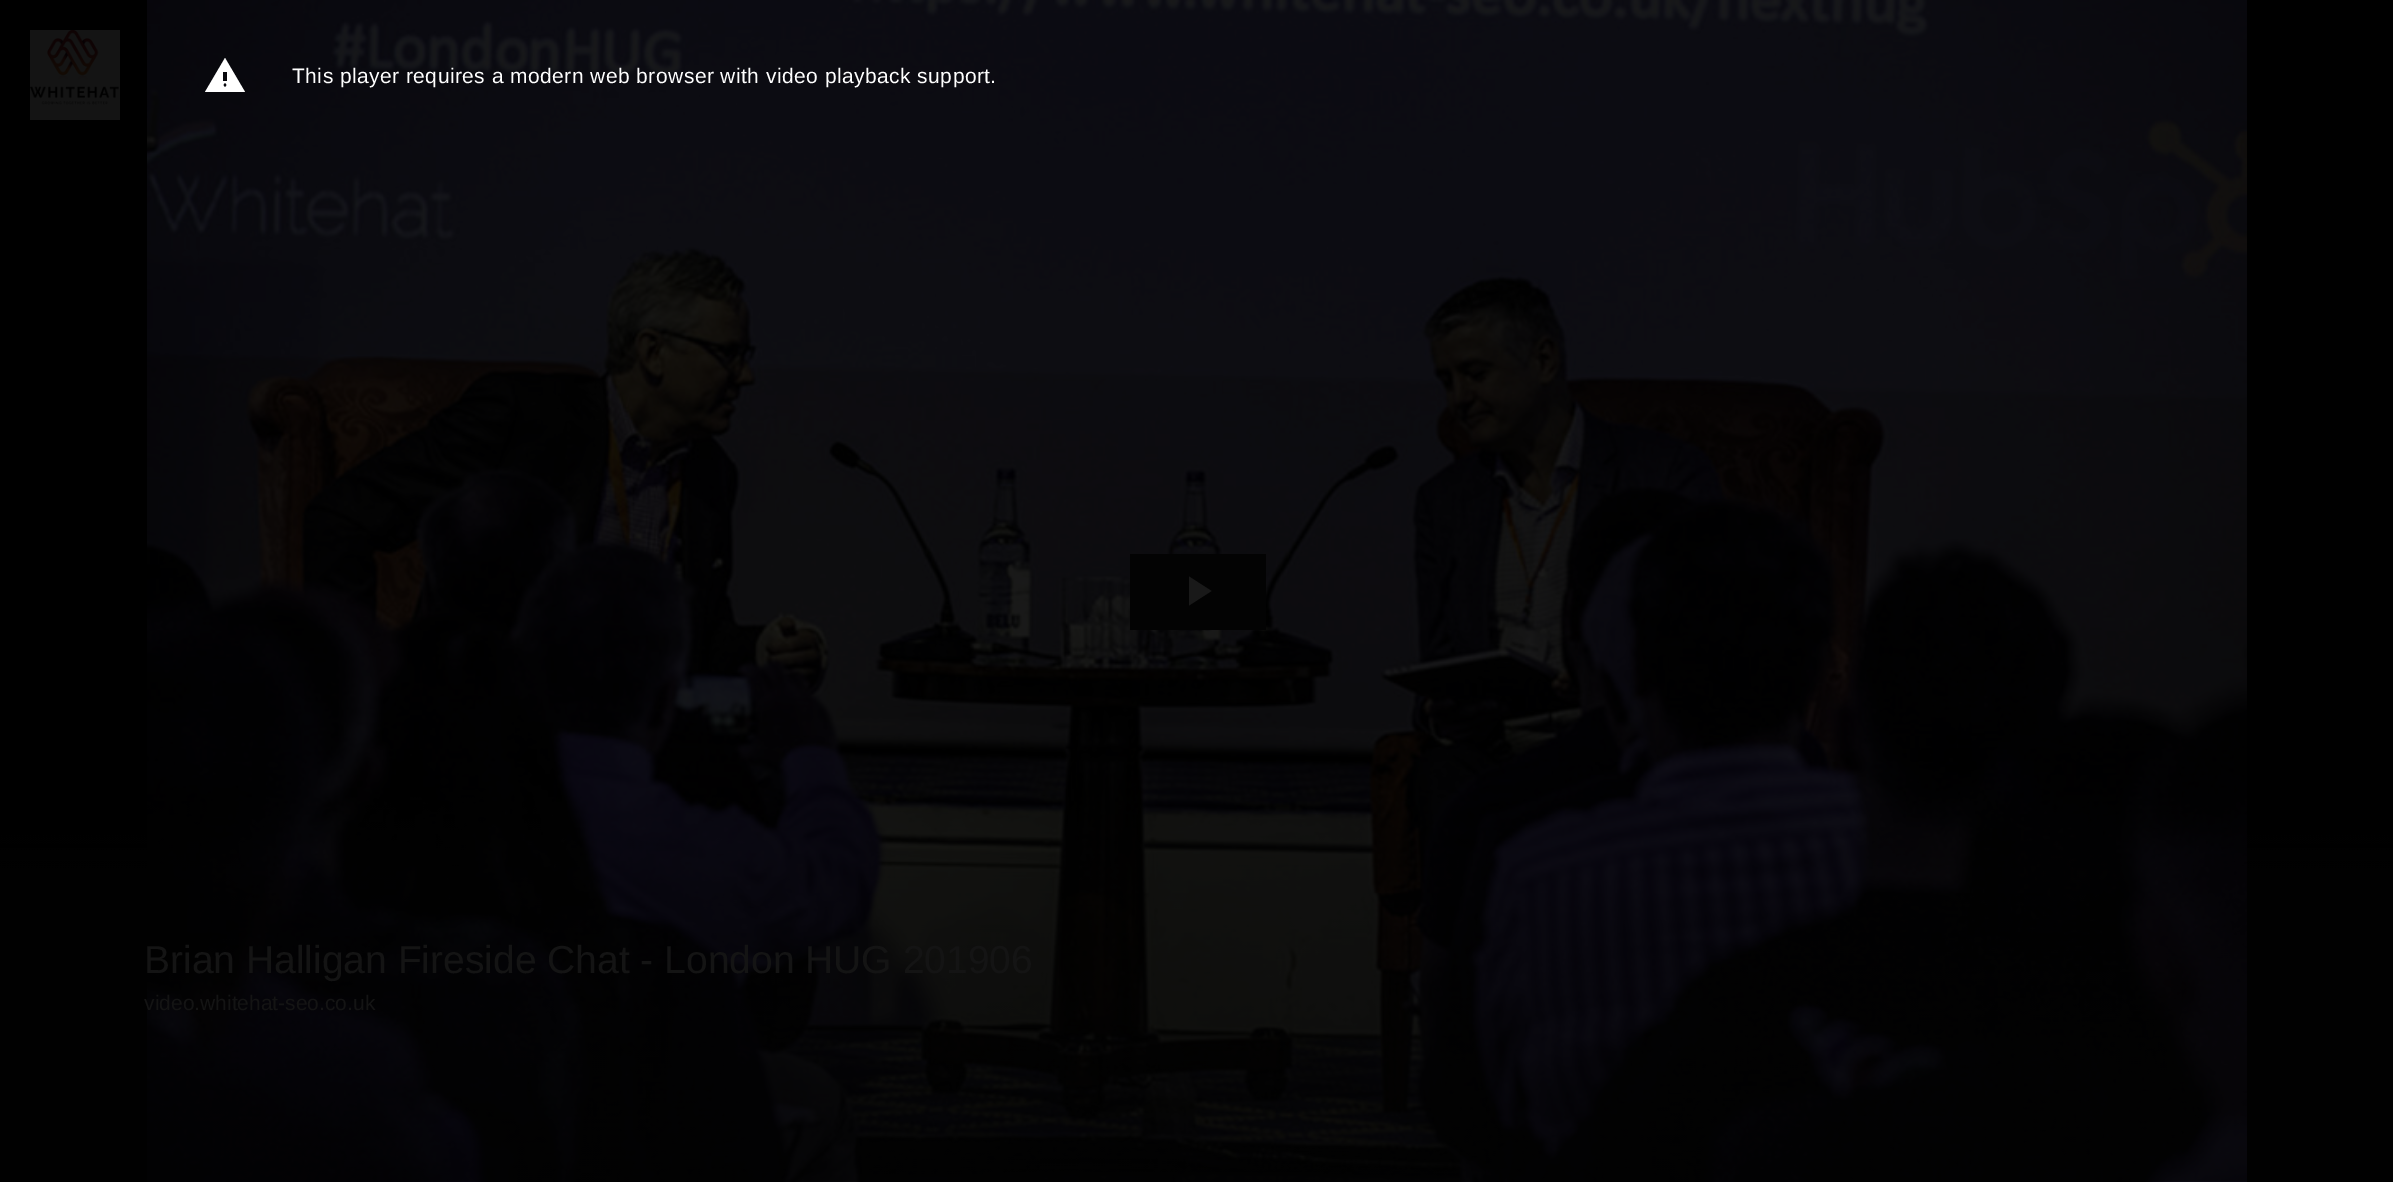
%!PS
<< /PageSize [2393 1182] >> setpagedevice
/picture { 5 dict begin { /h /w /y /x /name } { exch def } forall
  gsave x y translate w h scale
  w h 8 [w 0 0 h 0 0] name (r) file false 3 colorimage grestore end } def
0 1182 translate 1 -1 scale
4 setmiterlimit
0 setgray
0 0 2393 1182 rectfill
(img1.rgb) 30 30 90 90 picture
(img2.rgb) 147 0 2100 1182 picture
1 setgray
newpath 205 92 moveto 225 58 lineto 245 92 lineto closepath 225 87 moveto 227 87 227 83 225 83 curveto 223 83 223 87 225 87 curveto closepath 223 81 moveto 227 81 lineto 227 72 lineto 223 72 lineto closepath fill
/LiberationSans-Regular [21 0 0 -21 0 0] selectfont
292 83 moveto 0.45 0 (This player requires a modern web browser with video playback support.) ashow
0.012 setgray
1130 554 136 76 rectfill
0.098 setgray
newpath 1189 576.5 moveto 1189 605.5 lineto 1211.5 591 lineto closepath fill
(img3.rgb) 0 797 2393 385 picture
/LiberationSans-Regular [39 0 0 -39 0 0] selectfont
0.078 setgray
144 973 moveto (Brian Halligan Fireside Chat - London HUG 201906) show
/LiberationSans-Regular [21 0 0 -21 0 0] selectfont
144 1010 moveto (video.whitehat-seo.co.uk) show
showpage
